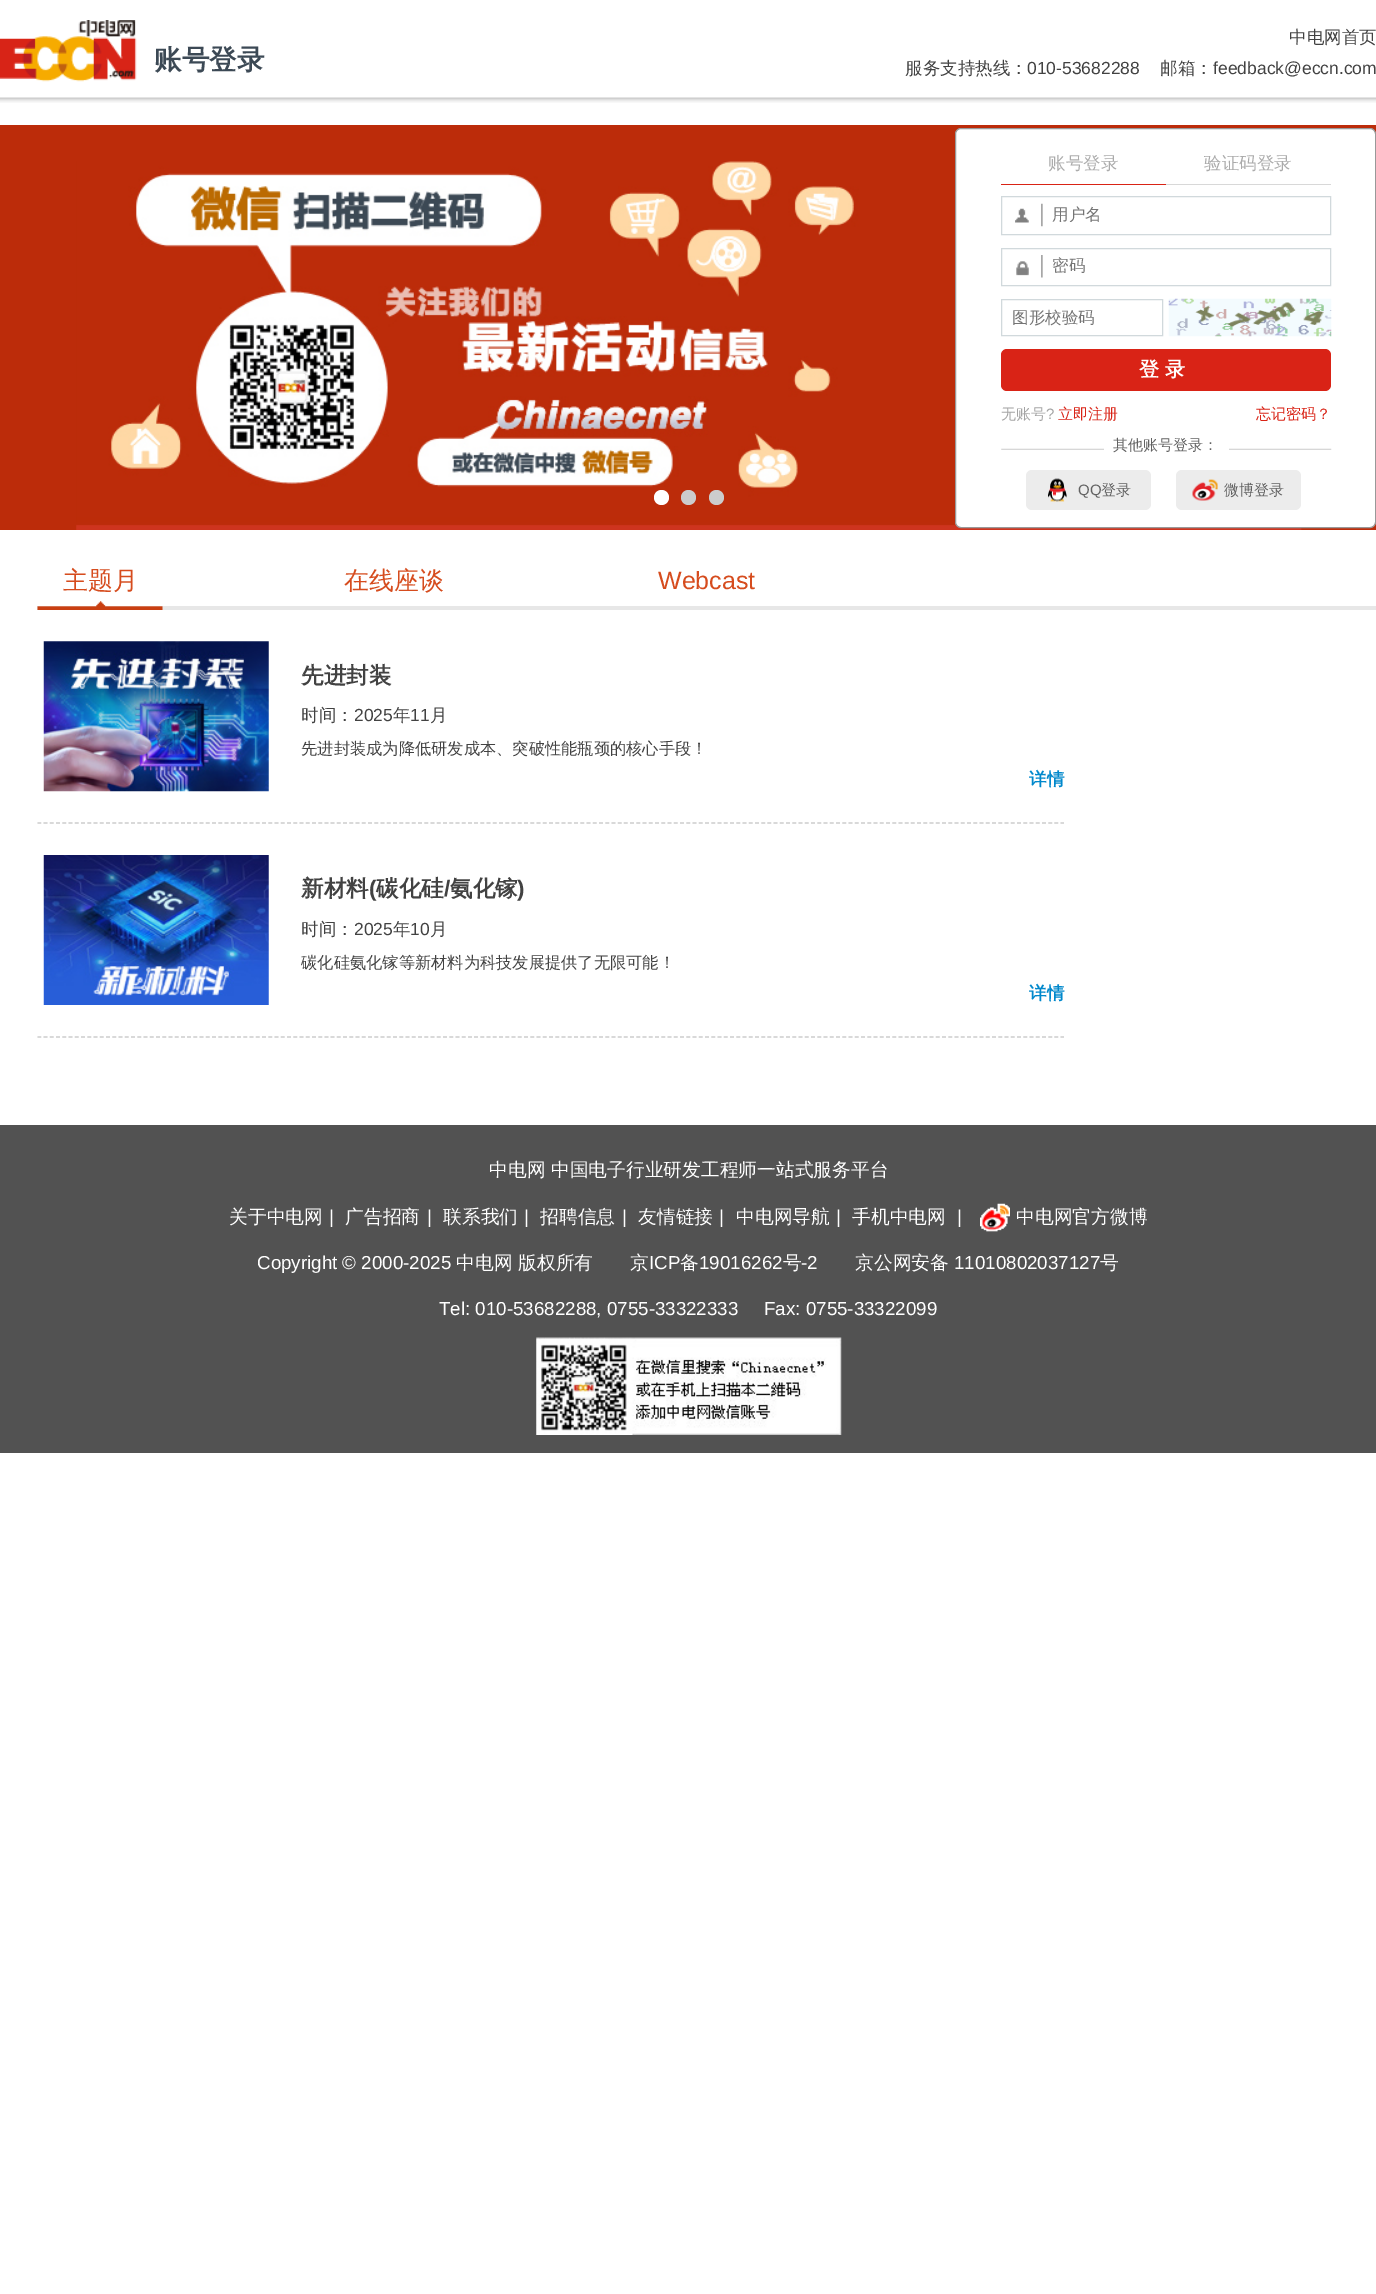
%!PS
<< /PageSize [1376 2294] >> setpagedevice
/roundrect { 5 dict begin { /r /h /w /y /x } { exch def } forall
  x r add y moveto x w add y 2 copy h add r arct x w add y h add x 1 index r arct
  x y h add x y r arct x y 2 copy exch w add exch r arct closepath end } def
/picture { 5 dict begin { /h /w /y /x /name } { exch def } forall
  gsave x y translate w h scale
  w h 8 [w 0 0 h 0 0] name (r) file false 3 colorimage grestore end } def
0 2294 translate 1 -1 scale
4 setmiterlimit
1 setgray
0 0 1376 2294 rectfill
(img1.rgb) 0 97 1376 6 picture
(img2.rgb) 0 20 137 62 picture
/WenQuanYiZenHei-Bold [27.5 0 0 -27.5 0 0] selectfont
0.235 0.286 0.333 setrgbcolor
154 69 moveto (账号登录) show
/WenQuanYiZenHei-Medium [17.5 0 0 -17.5 0 0] selectfont
0.259 setgray
1289 43 moveto (中电网首页) show
905 74 moveto (服务支持热线：) show
/LiberationSans-Regular [17.5 0 0 -17.5 0 0] selectfont
1027 74 moveto (010-53682288) show
/WenQuanYiZenHei-Medium [17.5 0 0 -17.5 0 0] selectfont
1160 74 moveto (邮箱：) show
/LiberationSans-Regular [17.5 0 0 -17.5 0 0] selectfont
1213 74 moveto (feedback@eccn.com) show
0.737 0.173 0.039 setrgbcolor
0 125 1376 405 rectfill
(img3.rgb) 76 161 1226 369 picture
1 setgray
newpath 661.5 497.5 7.5 0 360 arc closepath fill
0.8 setgray
newpath 688.5 497.5 7.5 0 360 arc closepath fill
newpath 716.5 497.5 7.5 0 360 arc closepath fill
1 setgray
955.5 128.5 420 399 5.5 roundrect gsave fill grestore
0.6 setgray
stroke
0.851 0.137 0.082 setrgbcolor
1001 184 165 1 rectfill
/WenQuanYiZenHei-Medium [17.5 0 0 -17.5 0 0] selectfont
0.671 setgray
1048 169 moveto (账号登录) show
0.847 setgray
1166 184 165 1 rectfill
0.671 setgray
1204 169 moveto (验证码登录) show
0.82 0.851 0.863 setrgbcolor
1001.5 196.5 329 38 rectstroke
(img4.rgb) 1015 203 28 24 picture
/WenQuanYiZenHei-Medium [16.5 0 0 -16.5 0 0] selectfont
0.459 setgray
1052 220 moveto (用户名) show
0.82 0.851 0.863 setrgbcolor
1001.5 248.5 329 37 rectstroke
(img5.rgb) 1016 255 27 23 picture
0.459 setgray
1052 271 moveto (密码) show
0.82 0.851 0.863 setrgbcolor
1001.5 299.5 161 36 rectstroke
0.459 setgray
1012 323 moveto (图形校验码) show
(img6.rgb) 1168 298 164 39 picture
0.851 0.137 0.086 setrgbcolor
1001 349 330 42 6 roundrect fill
/WenQuanYiZenHei-Bold [20 0 0 -20 0 0] selectfont
1 setgray
1139 376 moveto 6 0 (登录) ashow
/WenQuanYiZenHei-Medium [15 0 0 -15 0 0] selectfont
0.643 setgray
1001 419 moveto (无账号) show
/LiberationSans-Regular [15 0 0 -15 0 0] selectfont
1046 419 moveto (?) show
/WenQuanYiZenHei-Medium [15 0 0 -15 0 0] selectfont
0.851 0.137 0.086 setrgbcolor
1058 419 moveto (立即注册) show
1256 419 moveto (忘记密码？) show
(img7.rgb) 1001 448 331 2 picture
1 setgray
1104 448 125 2 rectfill
0.384 setgray
1113 450 moveto (其他账号登录：) show
0.925 setgray
1026 470 125 40 6 roundrect fill
(img8.rgb) 1048 478 19 24 picture
/LiberationSans-Regular [15 0 0 -15 0 0] selectfont
0.384 setgray
1078 495 moveto (QQ) show
/WenQuanYiZenHei-Medium [15 0 0 -15 0 0] selectfont
1101 495 moveto (登录) show
0.925 setgray
1176 470 125 40 6 roundrect fill
(img9.rgb) 1192 479 26 22 picture
0.384 setgray
1224 495 moveto (微博登录) show
0.906 setgray
37 606 1339 4 rectfill
(img10.rgb) 37 601 126 9 picture
/WenQuanYiZenHei-Medium [25 0 0 -25 0 0] selectfont
0.839 0.298 0.118 setrgbcolor
63 589 moveto (主题月) show
344 589 moveto (在线座谈) show
/LiberationSans-Regular [25 0 0 -25 0 0] selectfont
658 589 moveto (Webcast) show
0.8 setgray
1.2 setlinewidth
[3.75 2.49] 0 setdash
newpath 37.5 823 moveto 1064 823 lineto stroke
(img11.rgb) 43 641 226 151 picture
/WenQuanYiZenHei-Bold [22.5 0 0 -22.5 0 0] selectfont
0.259 setgray
301 683 moveto (先进封装) show
/WenQuanYiZenHei-Medium [17.5 0 0 -17.5 0 0] selectfont
301 721 moveto (时间：) show
/LiberationSans-Regular [17.5 0 0 -17.5 0 0] selectfont
354 721 moveto (2025) show
/WenQuanYiZenHei-Medium [17.5 0 0 -17.5 0 0] selectfont
393 721 moveto (年) show
/LiberationSans-Regular [17.5 0 0 -17.5 0 0] selectfont
410 721 moveto (11) show
/WenQuanYiZenHei-Medium [17.5 0 0 -17.5 0 0] selectfont
430 721 moveto (月) show
/WenQuanYiZenHei-Medium [16.25 0 0 -16.25 0 0] selectfont
301 754 moveto (先进封装成为降低研发成本、突破性能瓶颈的核心手段！) show
/WenQuanYiZenHei-Bold [17.5 0 0 -17.5 0 0] selectfont
0 0.533 0.8 setrgbcolor
1029 785 moveto (详情) show
0.8 setgray
newpath 37.5 1037 moveto 1064 1037 lineto stroke
(img12.rgb) 43 855 226 150 picture
/WenQuanYiZenHei-Bold [22.5 0 0 -22.5 0 0] selectfont
0.259 setgray
301 896 moveto (新材料) show
/LiberationSans-Bold [22.5 0 0 -22.5 0 0] selectfont
369 896 moveto (\() show
/WenQuanYiZenHei-Bold [22.5 0 0 -22.5 0 0] selectfont
376 896 moveto (碳化硅) show
/LiberationSans-Bold [22.5 0 0 -22.5 0 0] selectfont
444 896 moveto (/) show
/WenQuanYiZenHei-Bold [22.5 0 0 -22.5 0 0] selectfont
450 896 moveto (氨化镓) show
/LiberationSans-Bold [22.5 0 0 -22.5 0 0] selectfont
517 896 moveto (\)) show
/WenQuanYiZenHei-Medium [17.5 0 0 -17.5 0 0] selectfont
301 935 moveto (时间：) show
/LiberationSans-Regular [17.5 0 0 -17.5 0 0] selectfont
354 935 moveto (2025) show
/WenQuanYiZenHei-Medium [17.5 0 0 -17.5 0 0] selectfont
393 935 moveto (年) show
/LiberationSans-Regular [17.5 0 0 -17.5 0 0] selectfont
410 935 moveto (10) show
/WenQuanYiZenHei-Medium [17.5 0 0 -17.5 0 0] selectfont
430 935 moveto (月) show
/WenQuanYiZenHei-Medium [16.25 0 0 -16.25 0 0] selectfont
301 968 moveto (碳化硅氨化镓等新材料为科技发展提供了无限可能！) show
/WenQuanYiZenHei-Bold [17.5 0 0 -17.5 0 0] selectfont
0 0.533 0.8 setrgbcolor
1029 999 moveto (详情) show
0.322 setgray
0 1125 1376 328 rectfill
/WenQuanYiZenHei-Medium [18.75 0 0 -18.75 0 0] selectfont
1 setgray
489 1176 moveto (中电网 中国电子行业研发工程师一站式服务平台) show
229 1223 moveto (关于中电网) show
/LiberationSans-Regular [18.75 0 0 -18.75 0 0] selectfont
329 1223 moveto (|) show
/WenQuanYiZenHei-Medium [18.75 0 0 -18.75 0 0] selectfont
345 1223 moveto (广告招商) show
/LiberationSans-Regular [18.75 0 0 -18.75 0 0] selectfont
427 1223 moveto (|) show
/WenQuanYiZenHei-Medium [18.75 0 0 -18.75 0 0] selectfont
443 1223 moveto (联系我们) show
/LiberationSans-Regular [18.75 0 0 -18.75 0 0] selectfont
524 1223 moveto (|) show
/WenQuanYiZenHei-Medium [18.75 0 0 -18.75 0 0] selectfont
540 1223 moveto (招聘信息) show
/LiberationSans-Regular [18.75 0 0 -18.75 0 0] selectfont
622 1223 moveto (|) show
/WenQuanYiZenHei-Medium [18.75 0 0 -18.75 0 0] selectfont
638 1223 moveto (友情链接) show
/LiberationSans-Regular [18.75 0 0 -18.75 0 0] selectfont
719 1223 moveto (|) show
/WenQuanYiZenHei-Medium [18.75 0 0 -18.75 0 0] selectfont
736 1223 moveto (中电网导航) show
/LiberationSans-Regular [18.75 0 0 -18.75 0 0] selectfont
836 1223 moveto (|) show
/WenQuanYiZenHei-Medium [18.75 0 0 -18.75 0 0] selectfont
852 1223 moveto (手机中电网) show
/LiberationSans-Regular [18.75 0 0 -18.75 0 0] selectfont
957 1223 moveto (|) show
(img13.rgb) 980 1203 30 29 picture
/WenQuanYiZenHei-Medium [18.75 0 0 -18.75 0 0] selectfont
1016 1223 moveto (中电网官方微博) show
/LiberationSans-Regular [18.75 0 0 -18.75 0 0] selectfont
257 1269 moveto (Copyright © 2000-2025) show
/WenQuanYiZenHei-Medium [18.75 0 0 -18.75 0 0] selectfont
456 1269 moveto (中电网) show
518 1269 moveto (版权所有) show
630 1269 moveto (京) show
/LiberationSans-Regular [18.75 0 0 -18.75 0 0] selectfont
649 1269 moveto (ICP) show
/WenQuanYiZenHei-Medium [18.75 0 0 -18.75 0 0] selectfont
680 1269 moveto (备) show
/LiberationSans-Regular [18.75 0 0 -18.75 0 0] selectfont
699 1269 moveto (19016262) show
/WenQuanYiZenHei-Medium [18.75 0 0 -18.75 0 0] selectfont
783 1269 moveto (号) show
/LiberationSans-Regular [18.75 0 0 -18.75 0 0] selectfont
801 1269 moveto (-2) show
/WenQuanYiZenHei-Medium [18.75 0 0 -18.75 0 0] selectfont
855 1269 moveto (京公网安备) show
/LiberationSans-Regular [18.75 0 0 -18.75 0 0] selectfont
954 1269 moveto (11010802037127) show
/WenQuanYiZenHei-Medium [18.75 0 0 -18.75 0 0] selectfont
1100 1269 moveto (号) show
/LiberationSans-Regular [18.75 0 0 -18.75 0 0] selectfont
439 1315 moveto (Tel: 010-53682288, 0755-33322333) show
764 1315 moveto (Fax: 0755-33322099) show
(img14.rgb) 536 1337 306 98 picture
showpage
